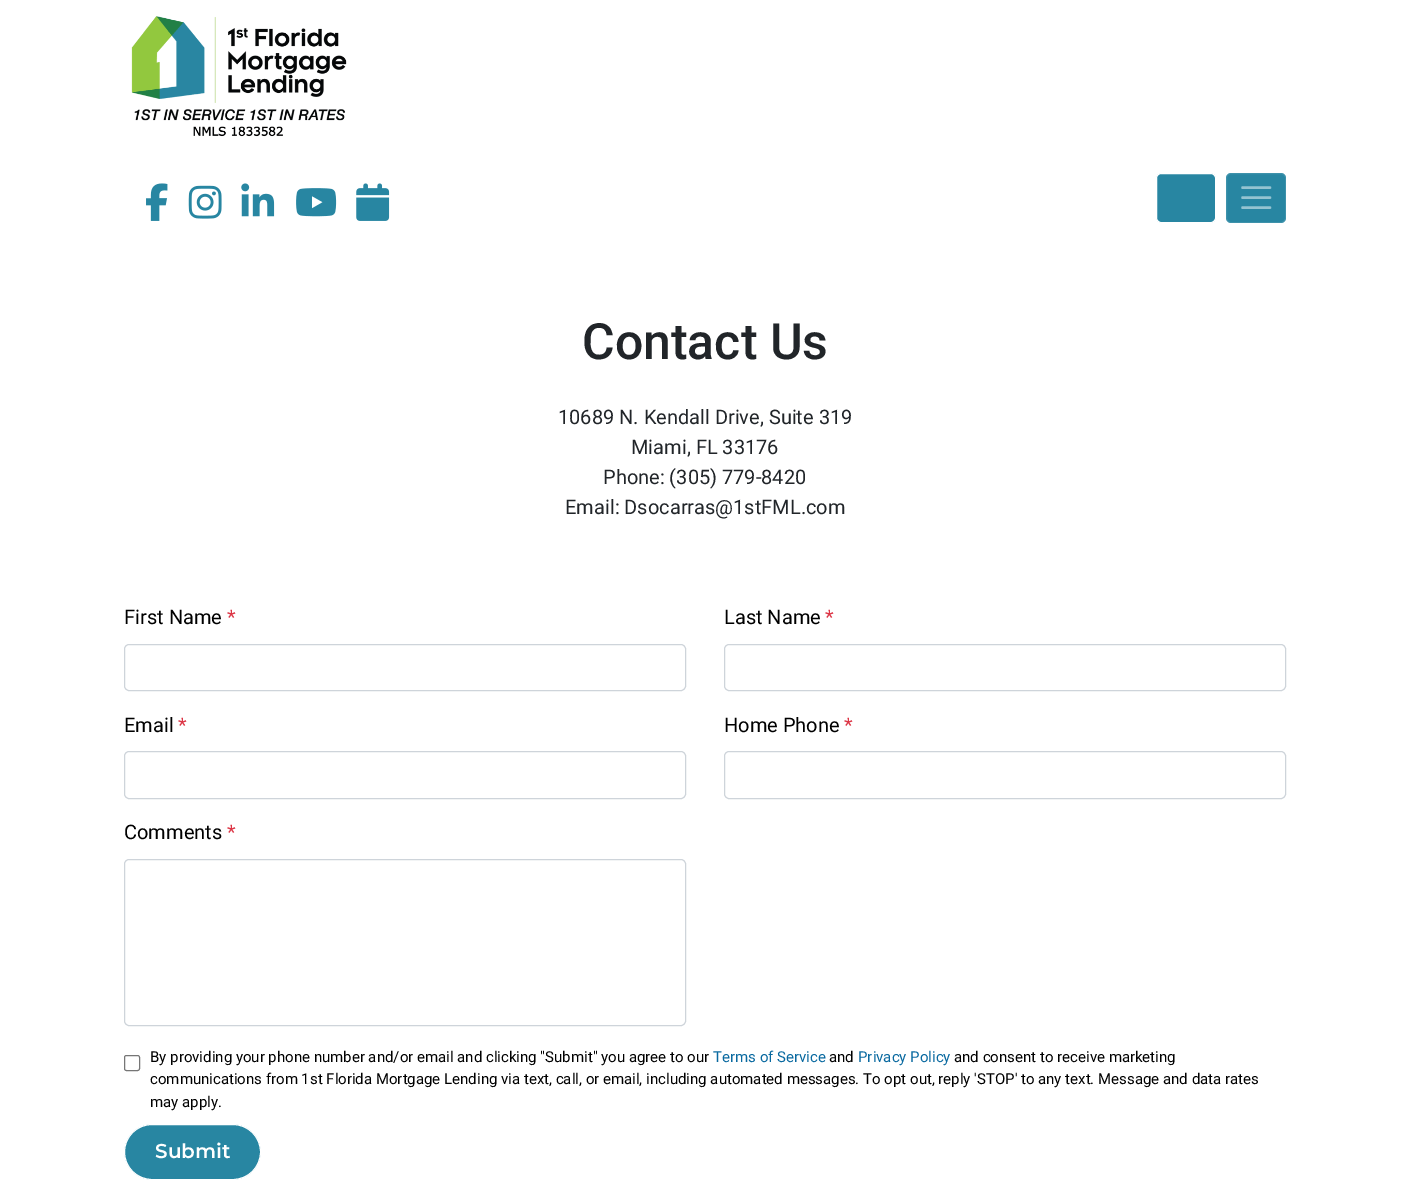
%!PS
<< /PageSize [1409 1196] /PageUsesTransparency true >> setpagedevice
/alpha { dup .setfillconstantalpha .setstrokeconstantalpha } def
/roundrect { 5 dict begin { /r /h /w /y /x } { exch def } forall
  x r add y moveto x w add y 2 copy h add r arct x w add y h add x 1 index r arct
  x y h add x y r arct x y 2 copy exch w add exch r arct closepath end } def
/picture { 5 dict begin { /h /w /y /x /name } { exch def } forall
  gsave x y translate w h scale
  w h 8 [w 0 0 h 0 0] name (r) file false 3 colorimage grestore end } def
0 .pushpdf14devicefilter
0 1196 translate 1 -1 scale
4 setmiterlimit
1 setgray
0 0 1409 1196 rectfill
(img1.rgb) 131 16 216 121 picture
(img2.rgb) 146 183 22 38 picture
(img3.rgb) 188 185 34 34 picture
(img4.rgb) 241 183 34 34 picture
(img5.rgb) 296 188 41 29 picture
(img6.rgb) 356 183 34 38 picture
0.157 0.525 0.635 setrgbcolor
1156.5 173.5 59 49 4.5 roundrect gsave fill grestore
1 setgray
stroke
0.157 0.525 0.635 setrgbcolor
1226 173 60 50 5 roundrect fill
0.1 alpha
1 setgray
1226.5 173.5 59 49 4.5 roundrect stroke
1 alpha
0.58 0.765 0.82 setrgbcolor
2.5 setlinewidth
1 setlinecap
newpath 1242.5 187.5 moveto 1270 187.5 lineto 1242.5 197.5 moveto 1270 197.5 lineto 1242.5 207.5 moveto 1270 207.5 lineto stroke
/Roboto-Medium [50 0 0 -50 0 0] selectfont
0.129 0.145 0.161 setrgbcolor
582 359 moveto (Contact Us) show
/Roboto-Regular [20 0 0 -20 0 0] selectfont
558 424 moveto (10689 N. Kendall Drive, Suite 319) show
631 454 moveto (Miami, FL 33176) show
603 484 moveto (Phone: \(305\) 779-8420) show
565 514 moveto (Email: Dsocarras@1stFML.com) show
0 setgray
124 624 moveto (First Name) show
0.863 0.208 0.271 setrgbcolor
227 624 moveto (*) show
0.808 0.831 0.855 setrgbcolor
1 setlinewidth
0 setlinecap
124.5 644.5 561 46 4.5 roundrect stroke
0 setgray
724 624 moveto (Last Name) show
0.863 0.208 0.271 setrgbcolor
825 624 moveto (*) show
0.808 0.831 0.855 setrgbcolor
724.5 644.5 561 46 4.5 roundrect stroke
0 setgray
124 732 moveto (Email) show
0.863 0.208 0.271 setrgbcolor
178 732 moveto (*) show
0.808 0.831 0.855 setrgbcolor
124.5 751.5 561 47 4.5 roundrect stroke
0 setgray
724 732 moveto (Home Phone) show
0.863 0.208 0.271 setrgbcolor
844 732 moveto (*) show
0.808 0.831 0.855 setrgbcolor
724.5 751.5 561 47 4.5 roundrect stroke
0 setgray
124 839 moveto (Comments) show
0.863 0.208 0.271 setrgbcolor
227 839 moveto (*) show
0.808 0.831 0.855 setrgbcolor
124.5 859.5 561 166 4.5 roundrect stroke
0.463 setgray
124.5 1055.5 15 15 2 roundrect stroke
/Roboto-Regular [15 0 0 -15 0 0] selectfont
0 setgray
150 1062 moveto (By providing your phone number and/or email and clicking "Submit" you agree to our) show
0.035 0.412 0.627 setrgbcolor
713 1062 moveto (Terms of Service) show
0 setgray
829 1062 moveto (and) show
0.035 0.412 0.627 setrgbcolor
858 1062 moveto (Privacy Policy) show
0 setgray
954 1062 moveto (and consent to receive marketing) show
150 1084 moveto (communications from 1st Florida Mortgage Lending via text, call, or email, including automated messages. To opt out, reply 'STOP' to any text. Message and data rates) show
150 1107 moveto (may apply.) show
0.157 0.525 0.635 setrgbcolor
124.5 1124.5 136 55 27.5 roundrect gsave fill grestore
1 setgray
stroke
/Montserrat-SemiBold [20 0 0 -20 0 0] selectfont
155 1158 moveto (Submit) show
.poppdf14devicefilter showpage
